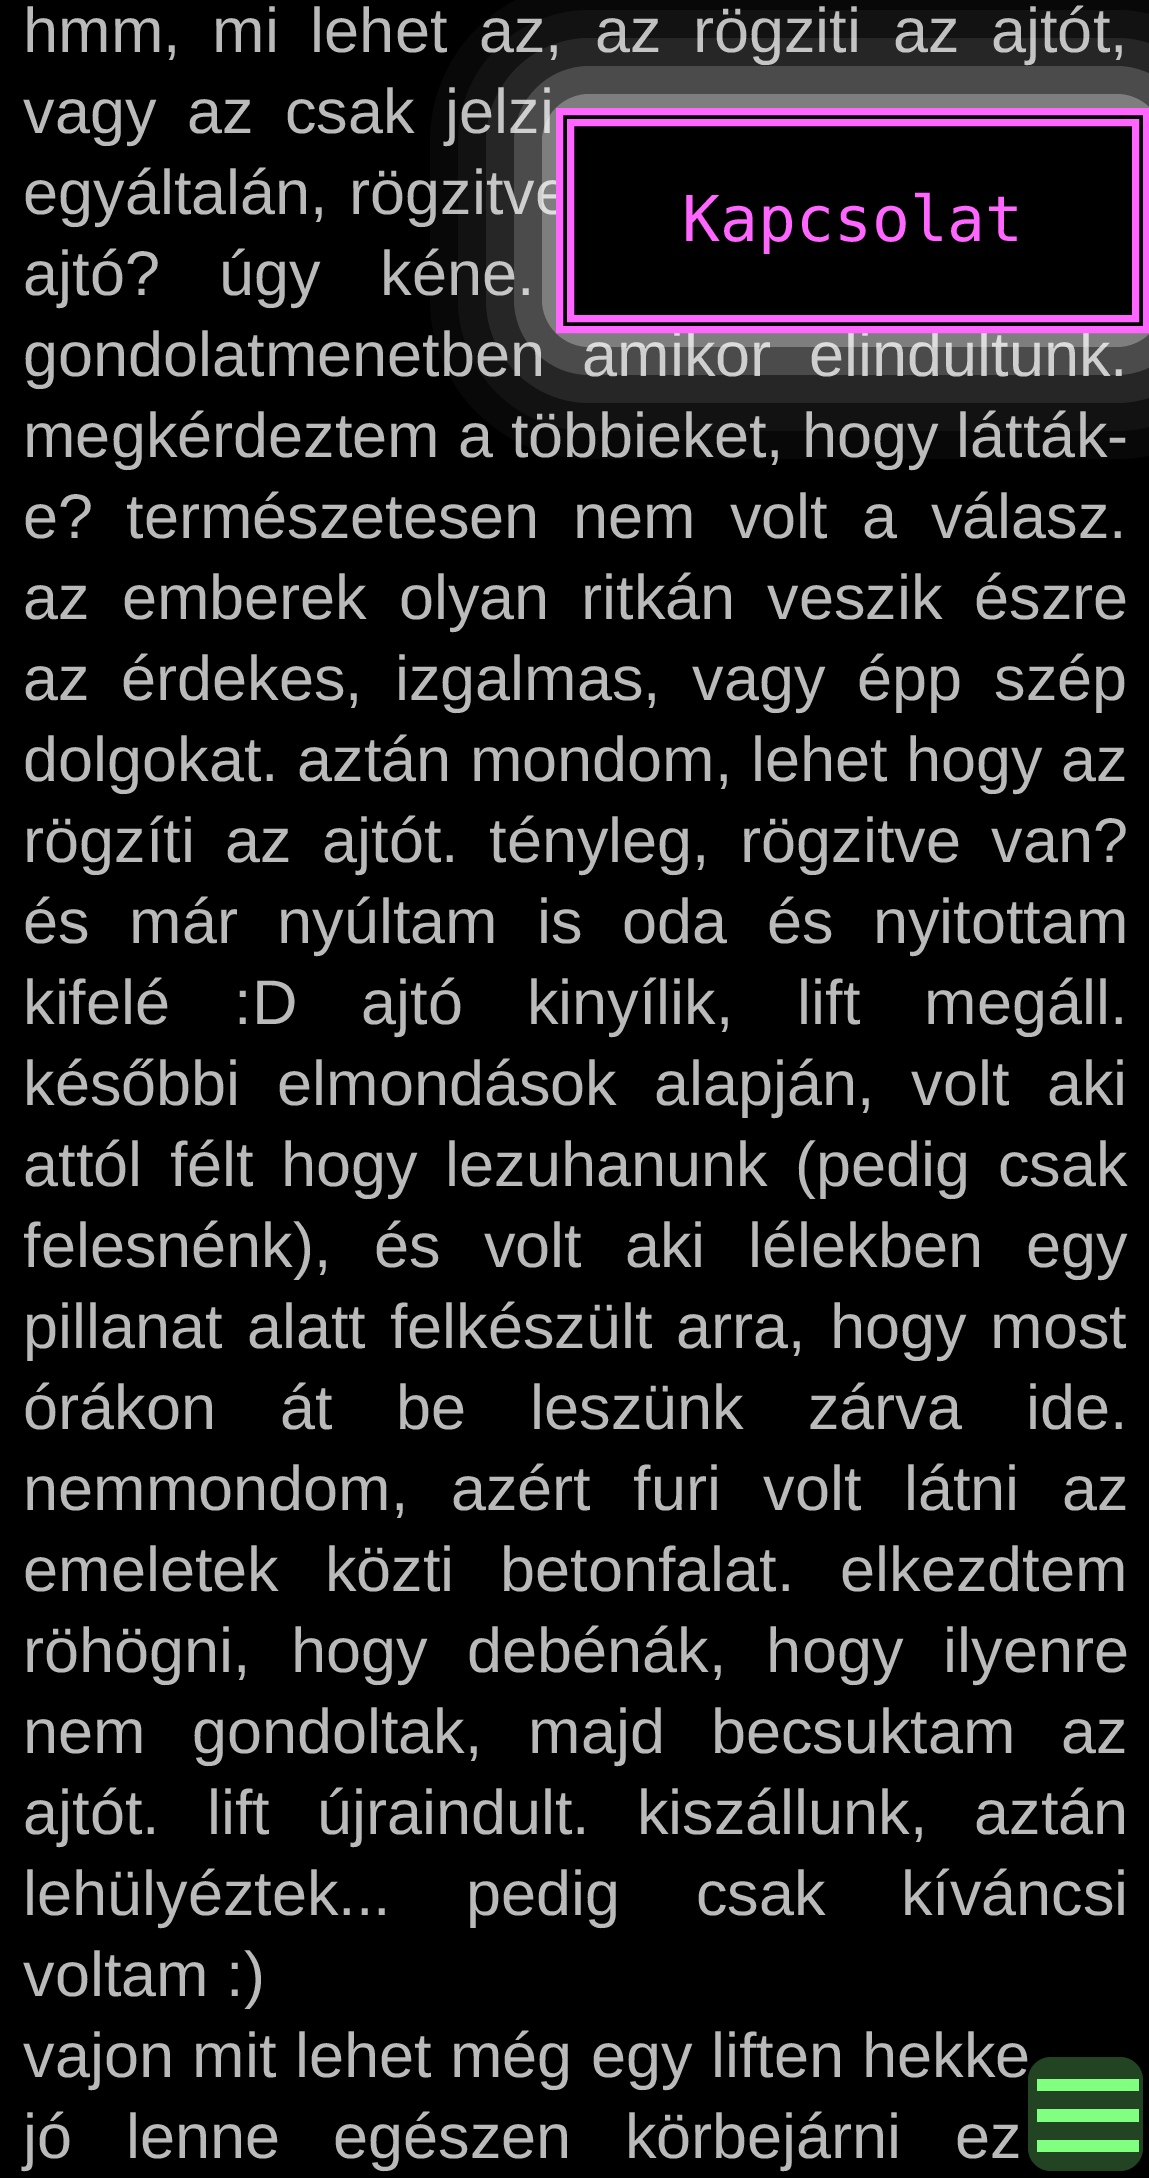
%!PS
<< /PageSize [1149 2178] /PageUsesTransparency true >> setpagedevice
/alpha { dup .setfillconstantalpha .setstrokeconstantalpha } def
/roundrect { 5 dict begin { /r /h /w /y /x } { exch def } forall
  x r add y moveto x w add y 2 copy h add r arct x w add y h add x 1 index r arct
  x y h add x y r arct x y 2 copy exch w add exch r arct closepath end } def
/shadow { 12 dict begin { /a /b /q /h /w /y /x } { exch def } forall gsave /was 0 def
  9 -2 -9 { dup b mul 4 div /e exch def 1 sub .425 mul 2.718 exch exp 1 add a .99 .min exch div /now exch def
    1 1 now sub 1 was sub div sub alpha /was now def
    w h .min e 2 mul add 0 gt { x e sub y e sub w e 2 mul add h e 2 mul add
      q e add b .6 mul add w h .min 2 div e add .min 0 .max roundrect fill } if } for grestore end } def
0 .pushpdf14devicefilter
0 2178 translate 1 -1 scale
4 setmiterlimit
0 setgray
0 0 1149 2178 rectfill
/LiberationSans-Regular [63 0 0 -63 0 0] selectfont
0.729 setgray
23 52 moveto 14.25 0 32 (hmm, mi lehet az, az rögziti az ajtót,) widthshow
23 133 moveto 13.5 0 32 (vagy az csak jelzi) widthshow
23 214 moveto 4 0 32 (egyáltalán, rögzitve) widthshow
23 295 moveto 42 0 32 (ajtó? úgy kéne.) widthshow
23 376 moveto 20 0 32 (gondolatmenetben amikor elindultunk.) widthshow
23 457 moveto 0.5 0 32 (megkérdeztem a többieket, hogy látták-) widthshow
23 538 moveto (e?) show
126 538 moveto 16.5 0 32 (természetesen nem volt a válasz.) widthshow
23 619 moveto 14.5 0 32 (az emberek olyan ritkán veszik észre) widthshow
23 700 moveto 14.25 0 32 (az érdekes, izgalmas, vagy épp szép) widthshow
23 781 moveto 1 0 32 (dolgokat. aztán mondom, lehet hogy az) widthshow
23 862 moveto 13 0 32 (rögzíti az ajtót. tényleg, rögzitve van?) widthshow
23 943 moveto 22 0 32 (és már nyúltam is oda és nyitottam) widthshow
23 1024 moveto 46.5 0 32 (kifelé :D ajtó kinyílik, lift megáll.) widthshow
23 1105 moveto 19.5 0 32 (későbbi elmondások alapján, volt aki) widthshow
23 1186 moveto 10 0 32 (attól félt hogy lezuhanunk \(pedig csak) widthshow
23 1267 moveto 25.5 0 32 (felesnénk\), és volt aki lélekben egy) widthshow
23 1348 moveto 6.5 0 32 (pillanat alatt felkészült arra, hogy most) widthshow
23 1429 moveto 46.5 0 32 (órákon át be leszünk zárva ide.) widthshow
23 1510 moveto 25 0 32 (nemmondom, azért furi volt látni az) widthshow
23 1591 moveto 28.5 0 32 (emeletek közti betonfalat. elkezdtem) widthshow
23 1672 moveto 22.5 0 32 (röhögni, hogy debénák, hogy ilyenre) widthshow
23 1753 moveto 28.5 0 32 (nem gondoltak, majd becsuktam az) widthshow
23 1834 moveto 29.5 0 32 (ajtót. lift újraindult. kiszállunk, aztán) widthshow
23 1915 moveto 58 0 32 (lehülyéztek... pedig csak kíváncsi) widthshow
23 1996 moveto (voltam :\)) show
23 2077 moveto 1 0 32 (vajon mit lehet még egy liften hekke) widthshow
23 2158 moveto 36 0 32 (jó lenne egészen körbejárni ez) widthshow
0.133 0.267 0.133 setrgbcolor
1028 2057 115 114 23 roundrect fill
0.502 1 0.502 setrgbcolor
1037 2079 102 12 rectfill
1037 2109 102 13 rectfill
1037 2140 102 12 rectfill
1 setgray
556 108 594 225 0 56 1 shadow
0 setgray
newpath 559.5 111.5 moveto 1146.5 111.5 lineto 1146.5 329.5 lineto 559.5 329.5 lineto closepath gsave fill grestore
1 0.4 1 setrgbcolor
7 setlinewidth
stroke
570.5 122.5 565 196 rectstroke
/DejaVuSansMono-Regular [63 0 0 -63 0 0] selectfont
682 241 moveto (Kapcsolat) show
.poppdf14devicefilter showpage
